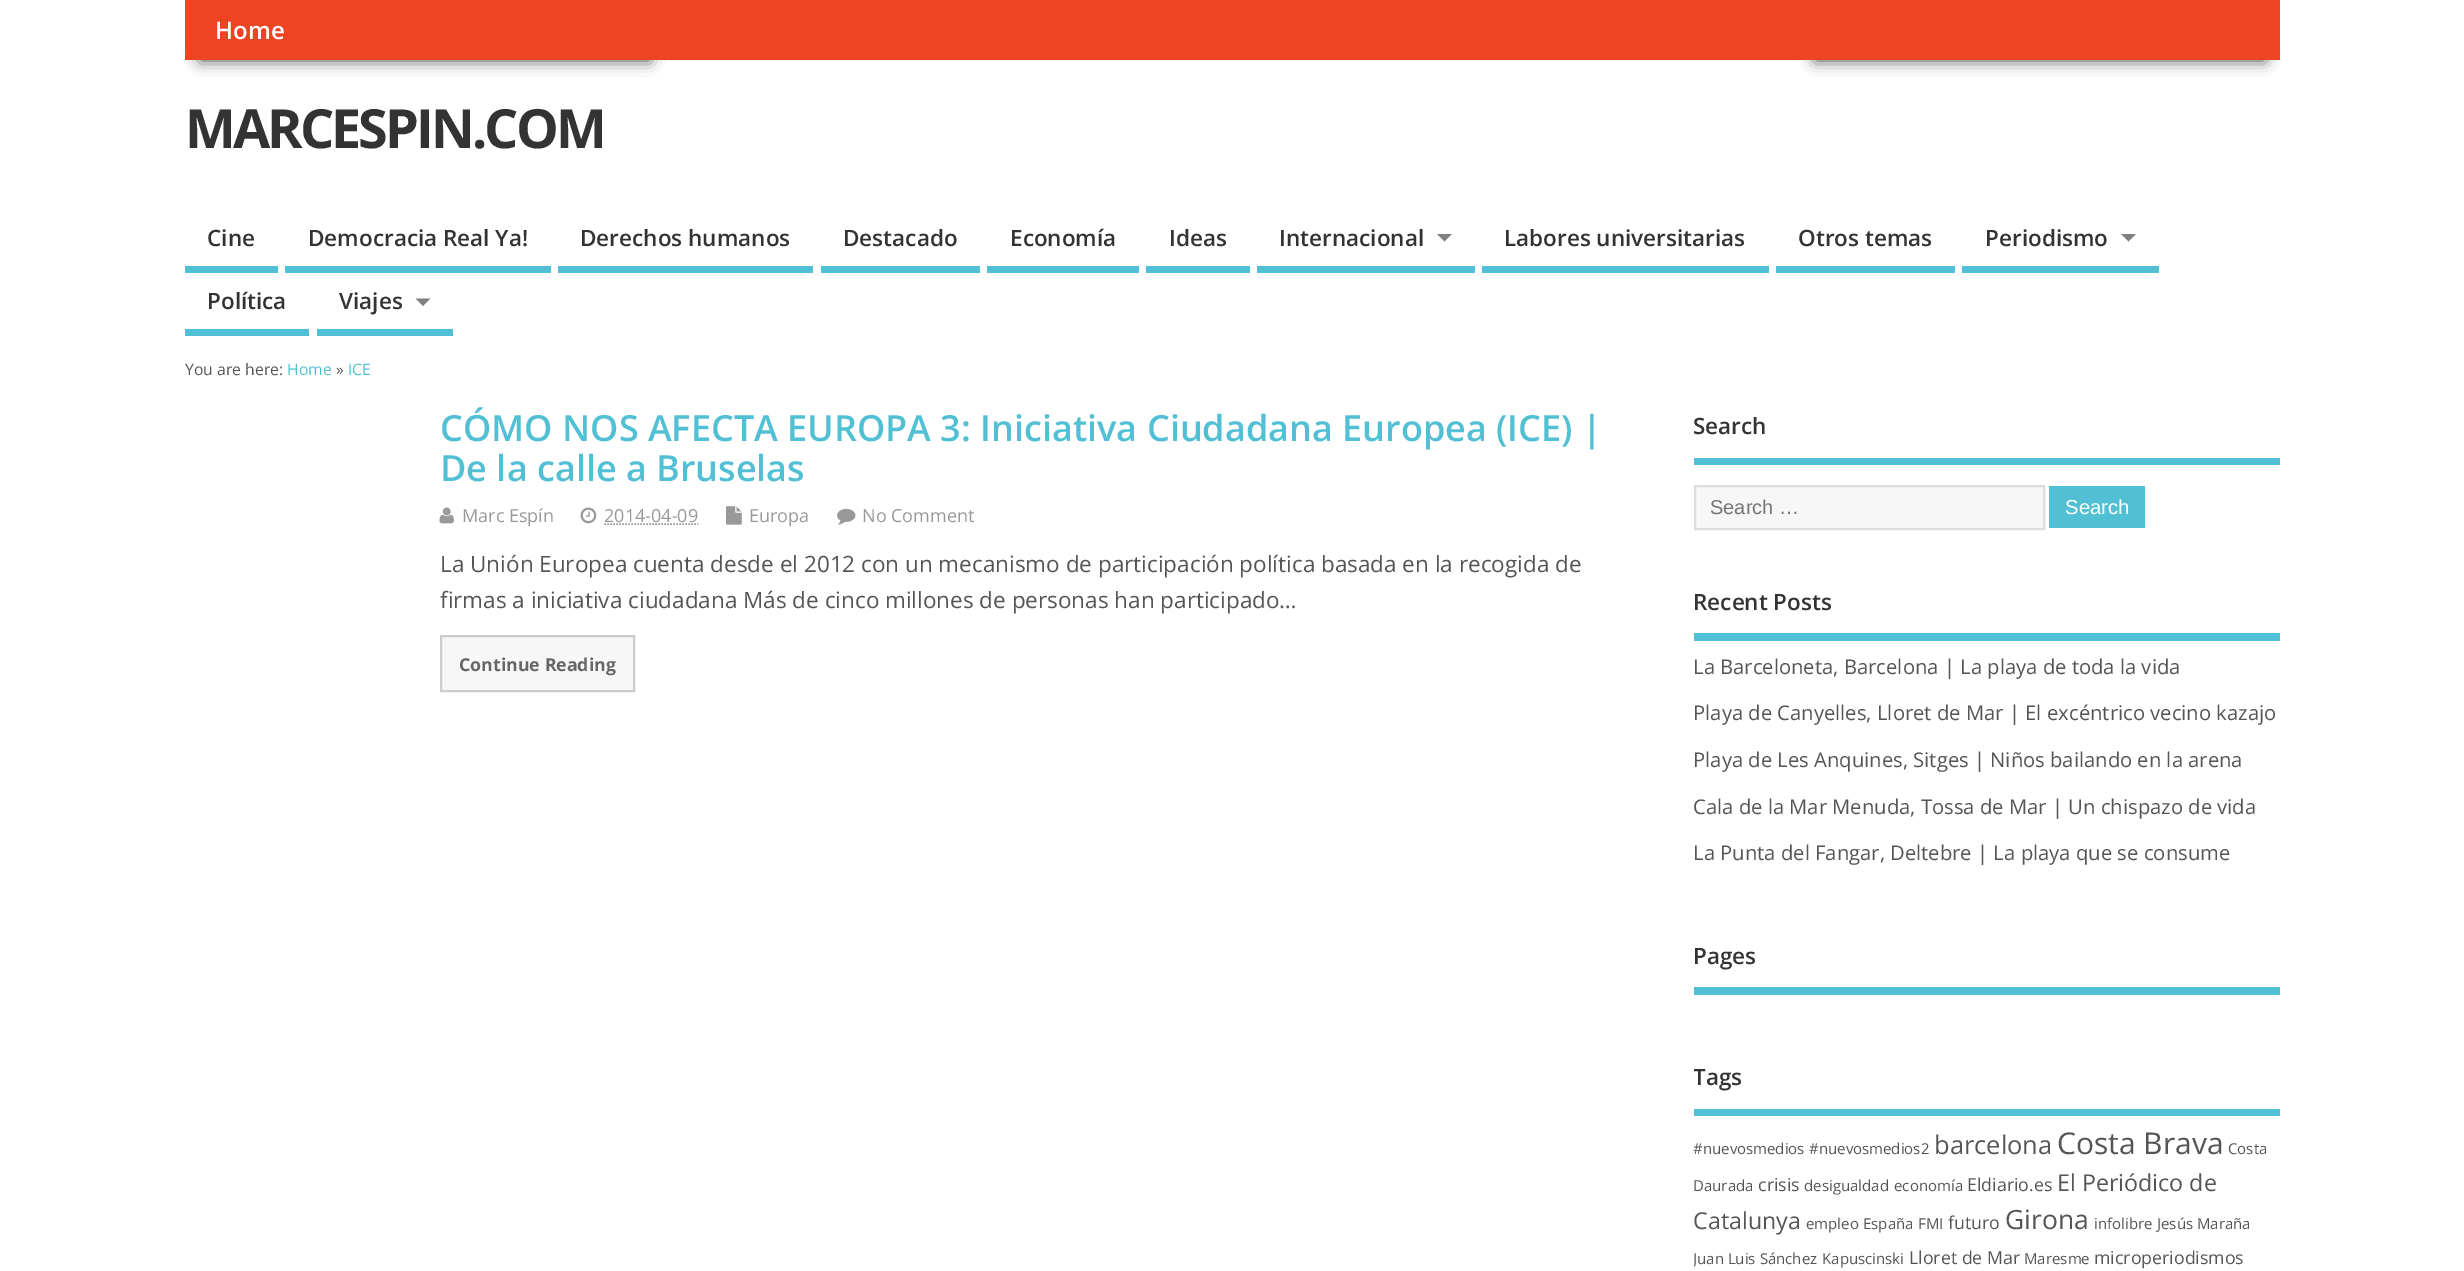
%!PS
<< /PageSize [2464 1271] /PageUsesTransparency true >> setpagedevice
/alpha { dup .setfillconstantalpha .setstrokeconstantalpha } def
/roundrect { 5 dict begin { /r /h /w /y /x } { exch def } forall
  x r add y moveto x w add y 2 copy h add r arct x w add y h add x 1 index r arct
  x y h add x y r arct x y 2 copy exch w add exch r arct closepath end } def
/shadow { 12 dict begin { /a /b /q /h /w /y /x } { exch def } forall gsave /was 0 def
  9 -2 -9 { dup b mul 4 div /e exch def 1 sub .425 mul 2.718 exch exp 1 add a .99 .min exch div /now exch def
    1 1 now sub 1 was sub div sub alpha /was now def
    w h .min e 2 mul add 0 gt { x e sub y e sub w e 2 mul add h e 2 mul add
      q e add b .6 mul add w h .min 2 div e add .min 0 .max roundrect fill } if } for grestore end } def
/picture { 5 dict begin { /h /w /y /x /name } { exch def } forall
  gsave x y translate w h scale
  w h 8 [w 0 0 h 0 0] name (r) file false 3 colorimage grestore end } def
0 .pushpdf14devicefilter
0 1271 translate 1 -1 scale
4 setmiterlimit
1 setgray
0 0 2464 1271 rectfill
0 setgray
200 48 450 12 0 7.5 0.75 shadow
1815 48 450 12 0 7.5 0.75 shadow
0.937 0.267 0.137 setrgbcolor
185 0 2095 60 rectfill
/OpenSans-SemiBold [24 0 0 -24 0 0] selectfont
1 setgray
215 39 moveto (Home) show
/OpenSans-Bold [54 0 0 -54 0 0] selectfont
0.2 setgray
185 148 moveto -3 0 (MARCESPIN.COM) ashow
0.322 0.753 0.831 setrgbcolor
185 266 93 7 rectfill
/OpenSans-SemiBold [22.5 0 0 -22.5 0 0] selectfont
0.2 setgray
207 246 moveto (Cine) show
0.322 0.753 0.831 setrgbcolor
285 266 266 7 rectfill
0.2 setgray
308 246 moveto (Democracia Real Ya!) show
0.322 0.753 0.831 setrgbcolor
558 266 255 7 rectfill
0.2 setgray
580 246 moveto (Derechos humanos) show
0.322 0.753 0.831 setrgbcolor
821 266 159 7 rectfill
0.2 setgray
843 246 moveto (Destacado) show
0.322 0.753 0.831 setrgbcolor
987 266 152 7 rectfill
0.2 setgray
1010 246 moveto (Economía) show
0.322 0.753 0.831 setrgbcolor
1146 266 104 7 rectfill
0.2 setgray
1169 246 moveto (Ideas) show
0.322 0.753 0.831 setrgbcolor
1257 266 218 7 rectfill
0.2 setgray
1279 246 moveto (Internacional) show
0.502 setgray
newpath 1437 234 moveto 1452 234 lineto 1444.5 241.5 lineto closepath fill
0.322 0.753 0.831 setrgbcolor
1482 266 287 7 rectfill
0.2 setgray
1504 246 moveto (Labores universitarias) show
0.322 0.753 0.831 setrgbcolor
1776 266 179 7 rectfill
0.2 setgray
1798 246 moveto (Otros temas) show
0.322 0.753 0.831 setrgbcolor
1962 266 197 7 rectfill
0.2 setgray
1985 246 moveto (Periodismo) show
0.502 setgray
newpath 2121 234 moveto 2136 234 lineto 2128.5 241.5 lineto closepath fill
0.322 0.753 0.831 setrgbcolor
185 329 124 7 rectfill
0.2 setgray
207 309 moveto (Política) show
0.322 0.753 0.831 setrgbcolor
317 329 136 7 rectfill
0.2 setgray
339 309 moveto (Viajes) show
0.502 setgray
newpath 415.5 298.5 moveto 430.5 298.5 lineto 423 306 lineto closepath fill
/OpenSans-Regular [15.75 0 0 -15.75 0 0] selectfont
0.333 setgray
185 375 moveto (You are here:) show
0.322 0.753 0.831 setrgbcolor
287 375 moveto (Home) show
0.333 setgray
336 375 moveto (») show
0.322 0.753 0.831 setrgbcolor
348 375 moveto (ICE) show
/OpenSans-SemiBold [36 0 0 -36 0 0] selectfont
440 441 moveto (CÓMO NOS AFECTA EUROPA 3: Iniciativa Ciudadana Europea \(ICE\) |) show
440 481 moveto (De la calle a Bruselas) show
(img1.rgb) 439 507 15 17 picture
/OpenSans-Regular [18 0 0 -18 0 0] selectfont
0.6 setgray
462 522 moveto (Marc Espín) show
(img2.rgb) 580 507 17 17 picture
604 522 moveto (2014-04-09) show
1.5 setlinewidth
[1.5 1.5] 0 setdash
newpath 604.5 524 moveto 698.5 524 lineto stroke
(img3.rgb) 726 506 16 19 picture
749 522 moveto (Europa) show
(img4.rgb) 837 508 19 17 picture
862 522 moveto (No Comment) show
/OpenSans-Regular [22.5 0 0 -22.5 0 0] selectfont
0.333 setgray
440 572 moveto (La Unión Europea cuenta desde el 2012 con un mecanismo de participación política basada en la recogida de) show
440 608 moveto (firmas a iniciativa ciudadana Más de cinco millones de personas han participado…) show
0.969 setgray
newpath 441 636 moveto 634 636 lineto 634 691 lineto 441 691 lineto closepath gsave fill grestore
0.8 setgray
2 setlinewidth
[] 0 setdash
stroke
/OpenSans-Bold [17.75 0 0 -17.75 0 0] selectfont
0.4 setgray
459 671 moveto (Continue Reading) show
0.322 0.753 0.831 setrgbcolor
1694 458 586 7 rectfill
/OpenSans-SemiBold [22.5 0 0 -22.5 0 0] selectfont
0.2 setgray
1693 434 moveto (Search) show
0.969 setgray
newpath 1695 486 moveto 2044 486 lineto 2044 529 lineto 1695 529 lineto closepath gsave fill grestore
0.867 setgray
stroke
/LiberationSans-Regular [20 0 0 -20 0 0] selectfont
0.459 setgray
1710 514 moveto (Search …) show
0.322 0.753 0.831 setrgbcolor
2049 486 96 42 rectfill
/LiberationSans-Regular [20.25 0 0 -20.25 0 0] selectfont
1 setgray
2065 514 moveto (Search) show
0.322 0.753 0.831 setrgbcolor
1694 633 586 8 rectfill
/OpenSans-SemiBold [22.5 0 0 -22.5 0 0] selectfont
0.2 setgray
1693 610 moveto (Recent Posts) show
/OpenSans-Regular [20.25 0 0 -20.25 0 0] selectfont
0.333 setgray
1693 674 moveto (La Barceloneta, Barcelona | La playa de toda la vida) show
1693 720 moveto (Playa de Canyelles, Lloret de Mar | El excéntrico vecino kazajo) show
1693 767 moveto (Playa de Les Anquines, Sitges | Niños bailando en la arena) show
1693 814 moveto (Cala de la Mar Menuda, Tossa de Mar | Un chispazo de vida) show
1693 860 moveto (La Punta del Fangar, Deltebre | La playa que se consume) show
0.322 0.753 0.831 setrgbcolor
1694 987 586 8 rectfill
/OpenSans-SemiBold [22.5 0 0 -22.5 0 0] selectfont
0.2 setgray
1693 964 moveto (Pages) show
0.322 0.753 0.831 setrgbcolor
1694 1109 586 7 rectfill
gsave
1694 408 586 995 rectclip
0.2 setgray
1693 1085 moveto (Tags) show
grestore
/OpenSans-Regular [15 0 0 -15 0 0] selectfont
0.333 setgray
1693 1154 moveto (#nuevosmedios) show
1809 1154 moveto (#nuevosmedios2) show
/OpenSans-Regular [25.5 0 0 -25.5 0 0] selectfont
1934 1154 moveto (barcelona) show
/OpenSans-Regular [30 0 0 -30 0 0] selectfont
2057 1154 moveto (Costa Brava) show
/OpenSans-Regular [15 0 0 -15 0 0] selectfont
2228 1154 moveto (Costa) show
1693 1191 moveto (Daurada) show
/OpenSans-Regular [17.75 0 0 -17.75 0 0] selectfont
1758 1191 moveto (crisis) show
/OpenSans-Regular [15 0 0 -15 0 0] selectfont
1804 1191 moveto (desigualdad) show
1894 1191 moveto (economía) show
/OpenSans-Regular [17.75 0 0 -17.75 0 0] selectfont
1967 1191 moveto (Eldiario.es) show
/OpenSans-Regular [23.25 0 0 -23.25 0 0] selectfont
2057 1191 moveto (El Periódico de) show
1693 1229 moveto (Catalunya) show
/OpenSans-Regular [15 0 0 -15 0 0] selectfont
1806 1229 moveto (empleo) show
1863 1229 moveto (España) show
1918 1229 moveto (FMI) show
/OpenSans-Regular [17.75 0 0 -17.75 0 0] selectfont
1948 1229 moveto (futuro) show
/OpenSans-Regular [26.5 0 0 -26.5 0 0] selectfont
2005 1229 moveto (Girona) show
/OpenSans-Regular [15 0 0 -15 0 0] selectfont
2094 1229 moveto (infolibre) show
2157 1229 moveto (Jesús Maraña) show
gsave
1694 1127 586 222 rectclip
1693 1264 moveto (Juan Luis Sánchez) show
grestore
1822 1264 moveto (Kapuscinski) show
/OpenSans-Regular [17.75 0 0 -17.75 0 0] selectfont
1909 1264 moveto (Lloret de Mar) show
/OpenSans-Regular [15 0 0 -15 0 0] selectfont
2024 1264 moveto (Maresme) show
/OpenSans-Regular [17.75 0 0 -17.75 0 0] selectfont
2094 1264 moveto (microperiodismos) show
.poppdf14devicefilter showpage
